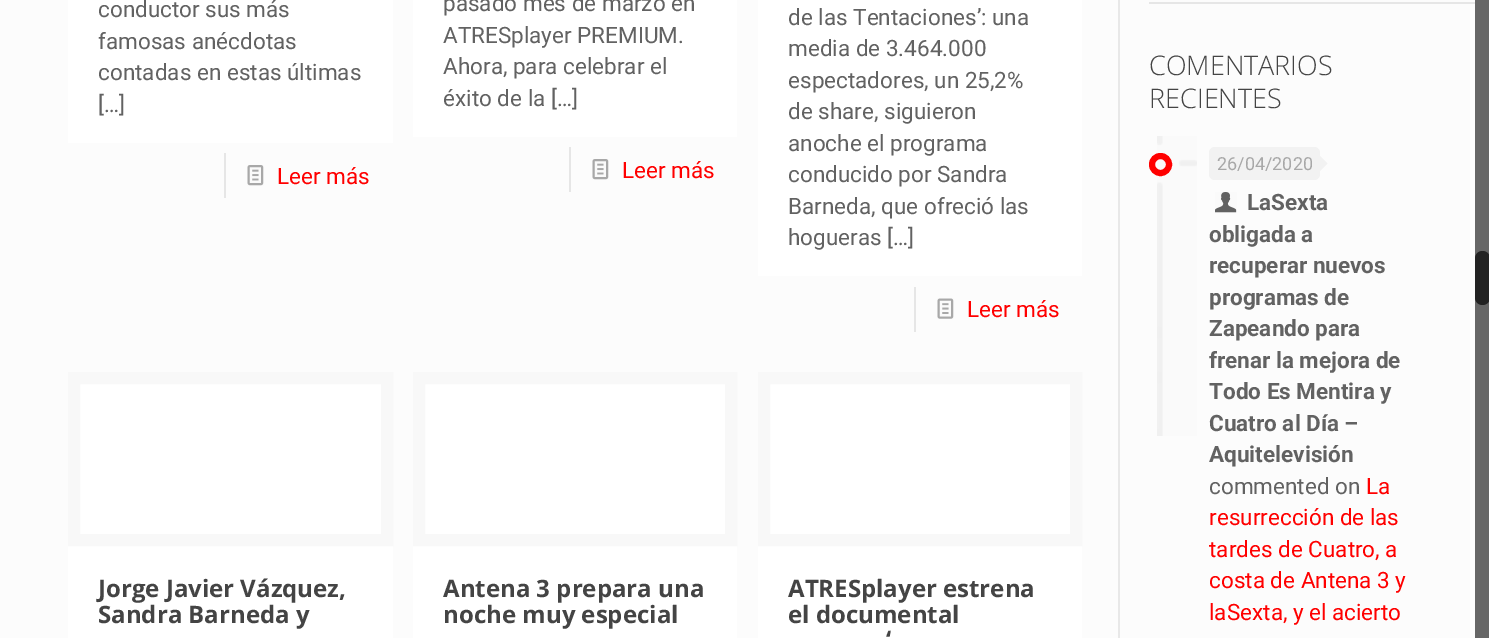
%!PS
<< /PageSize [1489 638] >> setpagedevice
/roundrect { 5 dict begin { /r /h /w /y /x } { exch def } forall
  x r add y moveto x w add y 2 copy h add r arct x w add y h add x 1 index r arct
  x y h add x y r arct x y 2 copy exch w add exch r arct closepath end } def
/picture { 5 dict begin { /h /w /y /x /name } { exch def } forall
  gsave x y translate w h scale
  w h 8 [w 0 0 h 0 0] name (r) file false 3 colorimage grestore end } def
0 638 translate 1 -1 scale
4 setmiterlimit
0.988 setgray
0 0 1489 638 rectfill
1 setgray
68 0 325 143 rectfill
/Roboto-Regular [22.5 0 0 -22.5 0 0] selectfont
0.384 setgray
98 17 moveto (conductor sus más) show
98 49 moveto (famosas anécdotas) show
98 80 moveto (contadas en estas últimas) show
98 112 moveto ([…]) show
0.902 setgray
224 153 2 45 rectfill
(img1.rgb) 247 165 17 21 picture
1 0 0 setrgbcolor
277 184 moveto (Leer más) show
1 setgray
413 0 324 137 rectfill
0.384 setgray
443 11 moveto (pasado mes de marzo en) show
443 43 moveto (ATRESplayer PREMIUM.) show
443 74 moveto (Ahora, para celebrar el) show
443 106 moveto (éxito de la […]) show
0.902 setgray
569 147 2 45 rectfill
(img1.rgb) 592 159 17 21 picture
1 0 0 setrgbcolor
622 178 moveto (Leer más) show
1 setgray
758 0 324 276 rectfill
0.384 setgray
788 25 moveto (de las Tentaciones’: una) show
788 56 moveto (media de 3.464.000) show
788 88 moveto (espectadores, un 25,2%) show
788 119 moveto (de share, siguieron) show
788 151 moveto (anoche el programa) show
788 182 moveto (conducido por Sandra) show
788 214 moveto (Barneda, que ofreció las) show
788 245 moveto (hogueras […]) show
0.902 setgray
914 287 2 45 rectfill
(img2.rgb) 937 298 17 21 picture
1 0 0 setrgbcolor
967 317 moveto (Leer más) show
1 setgray
68 384 325 254 rectfill
0.973 setgray
12 setlinewidth
74 378 313 162 rectstroke
/OpenSans-Bold [24 0 0 -24 0 0] selectfont
0.267 setgray
98 597 moveto (Jorge Javier Vázquez,) show
98 623 moveto (Sandra Barneda y) show
1 setgray
413 384 324 254 rectfill
0.973 setgray
419 378 312 162 rectstroke
0.267 setgray
443 597 moveto (Antena 3 prepara una) show
443 623 moveto (noche muy especial) show
1 setgray
758 384 324 254 rectfill
0.973 setgray
764 378 312 162 rectstroke
0.267 setgray
788 597 moveto (ATRESplayer estrena) show
788 623 moveto (el documental) show
886 648 moveto (‘) show
0.91 setgray
1118 0 2 638 rectfill
0.902 setgray
1149 2 326 2 rectfill
/OpenSans-Light [27 0 0 -27 0 0] selectfont
0.267 setgray
1149 75 moveto (COMENTARIOS) show
1149 108 moveto (RECIENTES) show
(img3.rgb) 1157 136 40 300 picture
1 0 0 setrgbcolor
6 setlinewidth
newpath 1160.5 164.5 8.5 0 360 arc closepath stroke
0.949 setgray
1209 147 111 33 6 roundrect fill
/Roboto-Regular [18 0 0 -18 0 0] selectfont
0.659 setgray
1217 170 moveto (26/04/2020) show
0.949 setgray
newpath 1320 171 moveto 1320 156 lineto 1327.5 163.5 lineto closepath fill
(img4.rgb) 1215 192 22 21 picture
/Roboto-Bold [22.5 0 0 -22.5 0 0] selectfont
0.384 setgray
1247 210 moveto (LaSexta) show
1209 242 moveto (obligada a) show
1209 273 moveto (recuperar nuevos) show
1209 305 moveto (programas de) show
1209 336 moveto (Zapeando para) show
1209 368 moveto (frenar la mejora de) show
1209 399 moveto (Todo Es Mentira y) show
1209 431 moveto (Cuatro al Día –) show
1209 462 moveto (Aquitelevisión) show
/Roboto-Regular [22.5 0 0 -22.5 0 0] selectfont
1209 494 moveto (commented on) show
1 0 0 setrgbcolor
1366 494 moveto (La) show
1209 525 moveto (resurrección de las) show
1209 557 moveto (tardes de Cuatro, a) show
1209 588 moveto (costa de Antena 3 y) show
1209 620 moveto (laSexta, y el acierto) show
0.4 setgray
1475 0 14 638 rectfill
0.133 setgray
1475 251 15 54 7.5 roundrect fill
showpage
